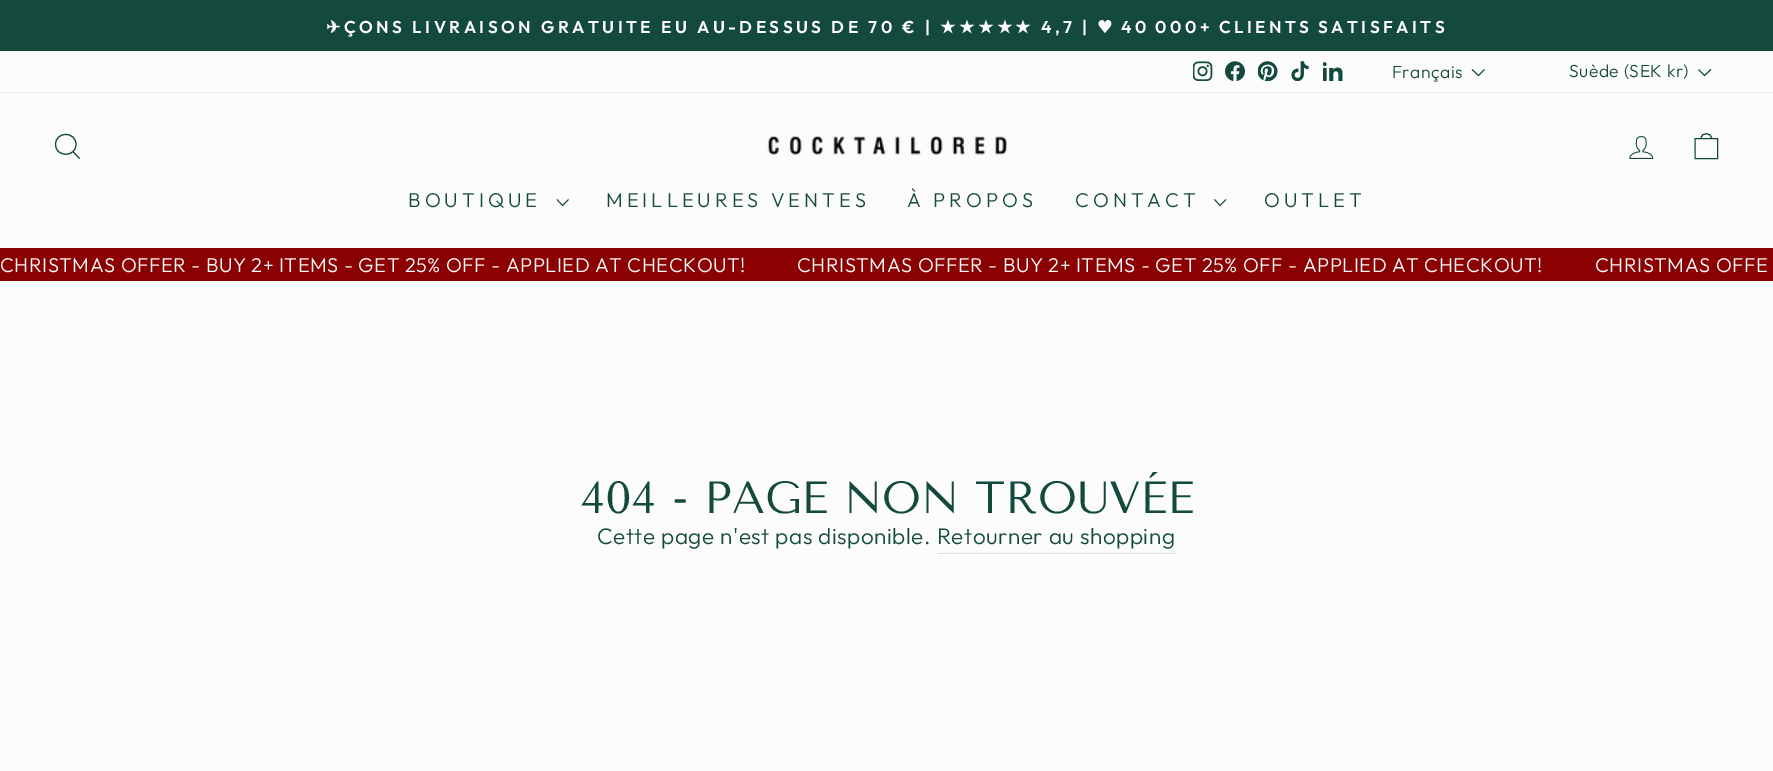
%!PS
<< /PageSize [1773 771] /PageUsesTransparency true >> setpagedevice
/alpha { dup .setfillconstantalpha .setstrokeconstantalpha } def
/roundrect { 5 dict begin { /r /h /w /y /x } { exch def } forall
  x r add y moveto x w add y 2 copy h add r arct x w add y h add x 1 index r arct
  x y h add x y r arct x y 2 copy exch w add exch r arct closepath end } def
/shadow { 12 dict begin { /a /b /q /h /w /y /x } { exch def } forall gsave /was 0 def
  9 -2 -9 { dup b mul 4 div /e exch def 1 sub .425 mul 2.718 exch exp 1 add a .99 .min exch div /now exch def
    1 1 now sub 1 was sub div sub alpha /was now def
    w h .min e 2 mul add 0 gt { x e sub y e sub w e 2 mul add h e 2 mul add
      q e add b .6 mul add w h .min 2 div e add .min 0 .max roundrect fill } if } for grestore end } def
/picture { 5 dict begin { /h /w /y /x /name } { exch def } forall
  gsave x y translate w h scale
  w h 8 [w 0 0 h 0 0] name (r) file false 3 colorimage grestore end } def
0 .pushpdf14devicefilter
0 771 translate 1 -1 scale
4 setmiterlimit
0.988 setgray
0 0 1773 771 rectfill
0.078 0.29 0.243 setrgbcolor
0 0 1773 51 rectfill
/DejaVuSans-Bold [17.2 0 0 -17.2 0 0] selectfont
1 setgray
326 33 moveto 3.45 0 (✈) ashow
/Outfit-SemiBold [17.2 0 0 -17.2 0 0] selectfont
344 33 moveto 3.45 0 (ÇONS LIVRAISON GRATUITE EU AU-DESSUS DE 70 € |) ashow
/DejaVuSans-Bold [17.2 0 0 -17.2 0 0] selectfont
940 33 moveto 3.45 0 (★★★★★) ashow
/Outfit-SemiBold [17.2 0 0 -17.2 0 0] selectfont
1041 33 moveto 3.45 0 (4,7 |) ashow
/DejaVuSans-Bold [17.2 0 0 -17.2 0 0] selectfont
1097 33 moveto 3.45 0 (♥) ashow
/Outfit-SemiBold [17.2 0 0 -17.2 0 0] selectfont
1121 33 moveto -1 0 32 3.45 0 (40 000+ CLIENTS SATISFAITS) awidthshow
(img1.rgb) 1193 61 20 20 picture
(img2.rgb) 1225 61 20 20 picture
(img3.rgb) 1258 61 20 20 picture
(img4.rgb) 1291 61 18 20 picture
(img5.rgb) 1323 62 20 19 picture
/Outfit-Light [17.5 0 0 -17.5 0 0] selectfont
0.078 0.29 0.243 setrgbcolor
1392 78 moveto 0.5 0 (Français) ashow
newpath 1472 69.5 moveto 1478.5 75.5 lineto 1484.5 69.5 lineto stroke
1569 77 moveto 0.5 0 (Suède \(SEK kr\)) ashow
newpath 1698.5 69.5 moveto 1704.5 75.5 lineto 1711 69.5 lineto stroke
0.545 0 0 setrgbcolor
0 248 1773 33 rectfill
0 setgray
0 93 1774 155 0 0.5 0.2 shadow
0.988 setgray
0 93 1773 155 rectfill
0.078 0.29 0.243 setrgbcolor
1.1 setlinewidth
newpath 76 144.5 moveto 76 157.5 55.5 157.5 55.5 144.5 curveto 55.5 131 76 131 76 144.5 curveto closepath 79.5 158.5 moveto 73 151.5 lineto stroke
(img6.rgb) 767 135 241 20 picture
(img7.rgb) 1629 136 25 23 picture
newpath 1695 138.5 moveto 1717.5 138.5 lineto 1717.5 158.5 lineto 1695 158.5 lineto closepath 1701 138.5 moveto 1701 132 1711.5 132 1711.5 138.5 curveto stroke
/Outfit-Light [20 0 0 -20 0 0] selectfont
408 207 moveto 4 0 (BOUTIQUE) ashow
0.9 setlinewidth
newpath 557 199.5 moveto 562.5 205.5 lineto 568.5 199.5 lineto stroke
606 207 moveto 4 0 (MEILLEURES VENTES) ashow
907 207 moveto 4 0 (À PROPOS) ashow
1075 207 moveto 4 0 (CONTACT) ashow
newpath 1214.5 199.5 moveto 1220 205.5 lineto 1226 199.5 lineto stroke
1264 207 moveto 4 0 (OUTLET) ashow
1 setgray
0 272 moveto 0.55 0 (CHRISTMAS OFFER - BUY 2+ ITEMS - GET 25% OFF - APPLIED AT CHECKOUT!) ashow
797 272 moveto 0.55 0 (CHRISTMAS OFFER - BUY 2+ ITEMS - GET 25% OFF - APPLIED AT CHECKOUT!) ashow
1595 272 moveto 0.55 0 (CHRISTMAS OFFE) ashow
/TenorSans-Regular [45 0 0 -45 0 0] selectfont
0.078 0.29 0.243 setrgbcolor
580 513 moveto (404 - PAGE NON TROUVÉE) show
/Outfit-Light [22.5 0 0 -22.5 0 0] selectfont
597 544 moveto 0.55 0 (Cette page n'est pas disponible. Retourner au shopping) ashow
0.851 0.882 0.878 setrgbcolor
938 553 238 1 rectfill
.poppdf14devicefilter showpage
